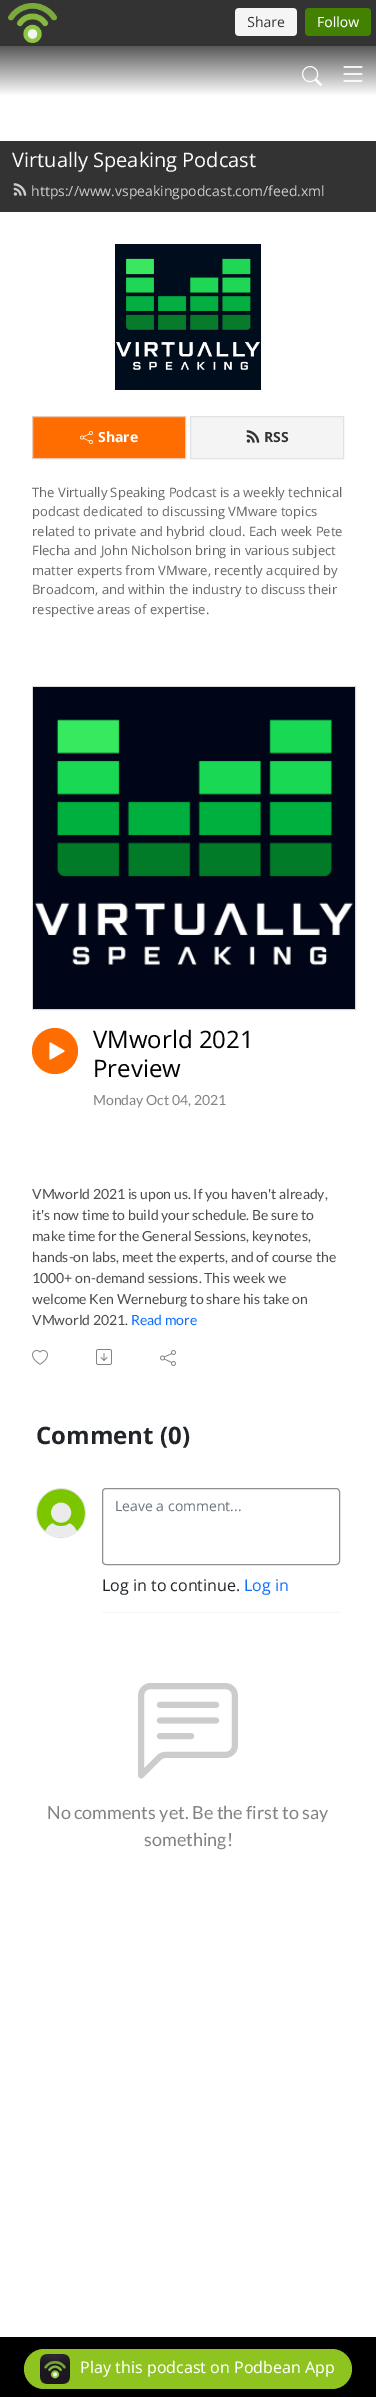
%!PS
<< /PageSize [376 2397] >> setpagedevice
/roundrect { 5 dict begin { /r /h /w /y /x } { exch def } forall
  x r add y moveto x w add y 2 copy h add r arct x w add y h add x 1 index r arct
  x y h add x y r arct x y 2 copy exch w add exch r arct closepath end } def
/picture { 5 dict begin { /h /w /y /x /name } { exch def } forall
  gsave x y translate w h scale
  w h 8 [w 0 0 h 0 0] name (r) file false 3 colorimage grestore end } def
0 2397 translate 1 -1 scale
4 setmiterlimit
1 setgray
0 0 376 2397 rectfill
0.2 setgray
0 0 376 46 rectfill
(img1.rgb) 8 3 363 40 picture
gsave newpath 0 46 moveto 376 46 lineto 376 95 lineto 0 95 lineto closepath clip newpath
<< /ShadingType 2 /ColorSpace /DeviceRGB /Coords [188 96 188 46] /Extend [true true] /Function << /FunctionType 2 /Domain [0 1] /C0 [1 1 1] /C1 [0.349 0.349 0.349] /N 1 >> >> shfill grestore
(img2.rgb) 302 66 20 20 picture
(img3.rgb) 343 66 20 16 picture
0 141 376 71 rectfill
/OpenSans-Regular [20 0 0 -20 0 0] selectfont
1 setgray
12 167 moveto (Virtually Speaking Podcast) show
(img4.rgb) 13 183 14 13 picture
/OpenSans-Regular [14 0 0 -14 0 0] selectfont
0.8 setgray
31 196 moveto (https://www.vspeakingpodcast.com/feed.xml) show
(img5.rgb) 115 244 146 146 picture
1 0.427 0 setrgbcolor
newpath 32.5 416.5 moveto 185.5 416.5 lineto 185.5 458.5 lineto 32.5 458.5 lineto closepath gsave fill grestore
0.91 0.796 0.71 setrgbcolor
stroke
(img6.rgb) 80 431 13 13 picture
/OpenSans-Bold [14 0 0 -14 0 0] selectfont
1 setgray
98 442 moveto (Share) show
0.957 setgray
newpath 190.5 416.5 moveto 343.5 416.5 lineto 343.5 458.5 lineto 190.5 458.5 lineto closepath gsave fill grestore
0.886 setgray
stroke
(img7.rgb) 246 430 14 13 picture
0.2 setgray
264 442 moveto (RSS) show
/OpenSans-Regular [13 0 0 -13 0 0] selectfont
0.392 0.4 0.412 setrgbcolor
32 497 moveto (The Virtually Speaking Podcast is a weekly technical) show
32 516 moveto (podcast dedicated to discussing VMware topics) show
32 536 moveto (related to private and hybrid cloud. Each week Pete) show
32 555 moveto (Flecha and John Nicholson bring in various subject) show
32 575 moveto (matter experts from VMware, recently acquired by) show
32 594 moveto (Broadcom, and within the industry to discuss their) show
32 614 moveto (respective areas of expertise.) show
0.855 setgray
32.5 686.5 323 323 rectstroke
(img8.rgb) 33 687 322 322 picture
1 0.427 0 setrgbcolor
newpath 55 1051 23 0 360 arc closepath fill
(img9.rgb) 49 1042 16 18 picture
/OpenSans-Regular [24 0 0 -24 0 0] selectfont
0 setgray
93 1048 moveto (VMworld 2021) show
93 1077 moveto (Preview) show
/Lato-Regular [14 0 0 -14 0 0] selectfont
0.514 setgray
93 1105 moveto (Monday Oct 04, 2021) show
0.298 setgray
32 1199 moveto (VMworld 2021 is upon us. If you haven't already,) show
32 1220 moveto (it's now time to build your schedule. Be sure to) show
32 1241 moveto (make time for the General Sessions, keynotes,) show
32 1262 moveto (hands-on labs, meet the experts, and of course the) show
32 1283 moveto (1000+ on-demand sessions. This week we) show
32 1304 moveto (welcome Ken Werneburg to share his take on) show
32 1325 moveto (VMworld 2021.) show
0.051 0.431 0.992 setrgbcolor
131 1325 moveto (Read more) show
(img10.rgb) 32 1350 16 15 picture
(img11.rgb) 96 1349 16 16 picture
(img12.rgb) 160 1350 16 16 picture
/OpenSans-Bold [24 0 0 -24 0 0] selectfont
0.129 0.145 0.161 setrgbcolor
36 1444 moveto (Comment \(0\)) show
0.89 setgray
newpath 61 1513 24.5 0 360 arc closepath stroke
(img13.rgb) 37 1489 48 48 picture
0.961 setgray
102 1612 238 1 rectfill
0.565 setgray
102.5 1488.5 237 76 3.5 roundrect stroke
/OpenSans-Regular [14 0 0 -14 0 0] selectfont
0.424 0.459 0.49 setrgbcolor
115 1511 moveto (Leave a comment...) show
/OpenSans-Regular [16 0 0 -16 0 0] selectfont
0.129 0.145 0.161 setrgbcolor
102 1591 moveto (Log in to continue.) show
0.051 0.431 0.992 setrgbcolor
244 1591 moveto (Log in) show
(img14.rgb) 138 1683 100 96 picture
/Lato-Regular [18 0 0 -18 0 0] selectfont
0.514 setgray
47 1819 moveto (No comments yet. Be the first to say) show
144 1846 moveto (something!) show
0 setgray
0 2337 376 60 rectfill
0.561 0.765 0.122 setrgbcolor
24 2349 328 40 20 roundrect fill
(img15.rgb) 40 2354 30 30 picture
/NotoSans-Regular [16 0 0 -16 0 0] selectfont
1 setgray
80 2373 moveto (Play this podcast on Podbean App) show
showpage
